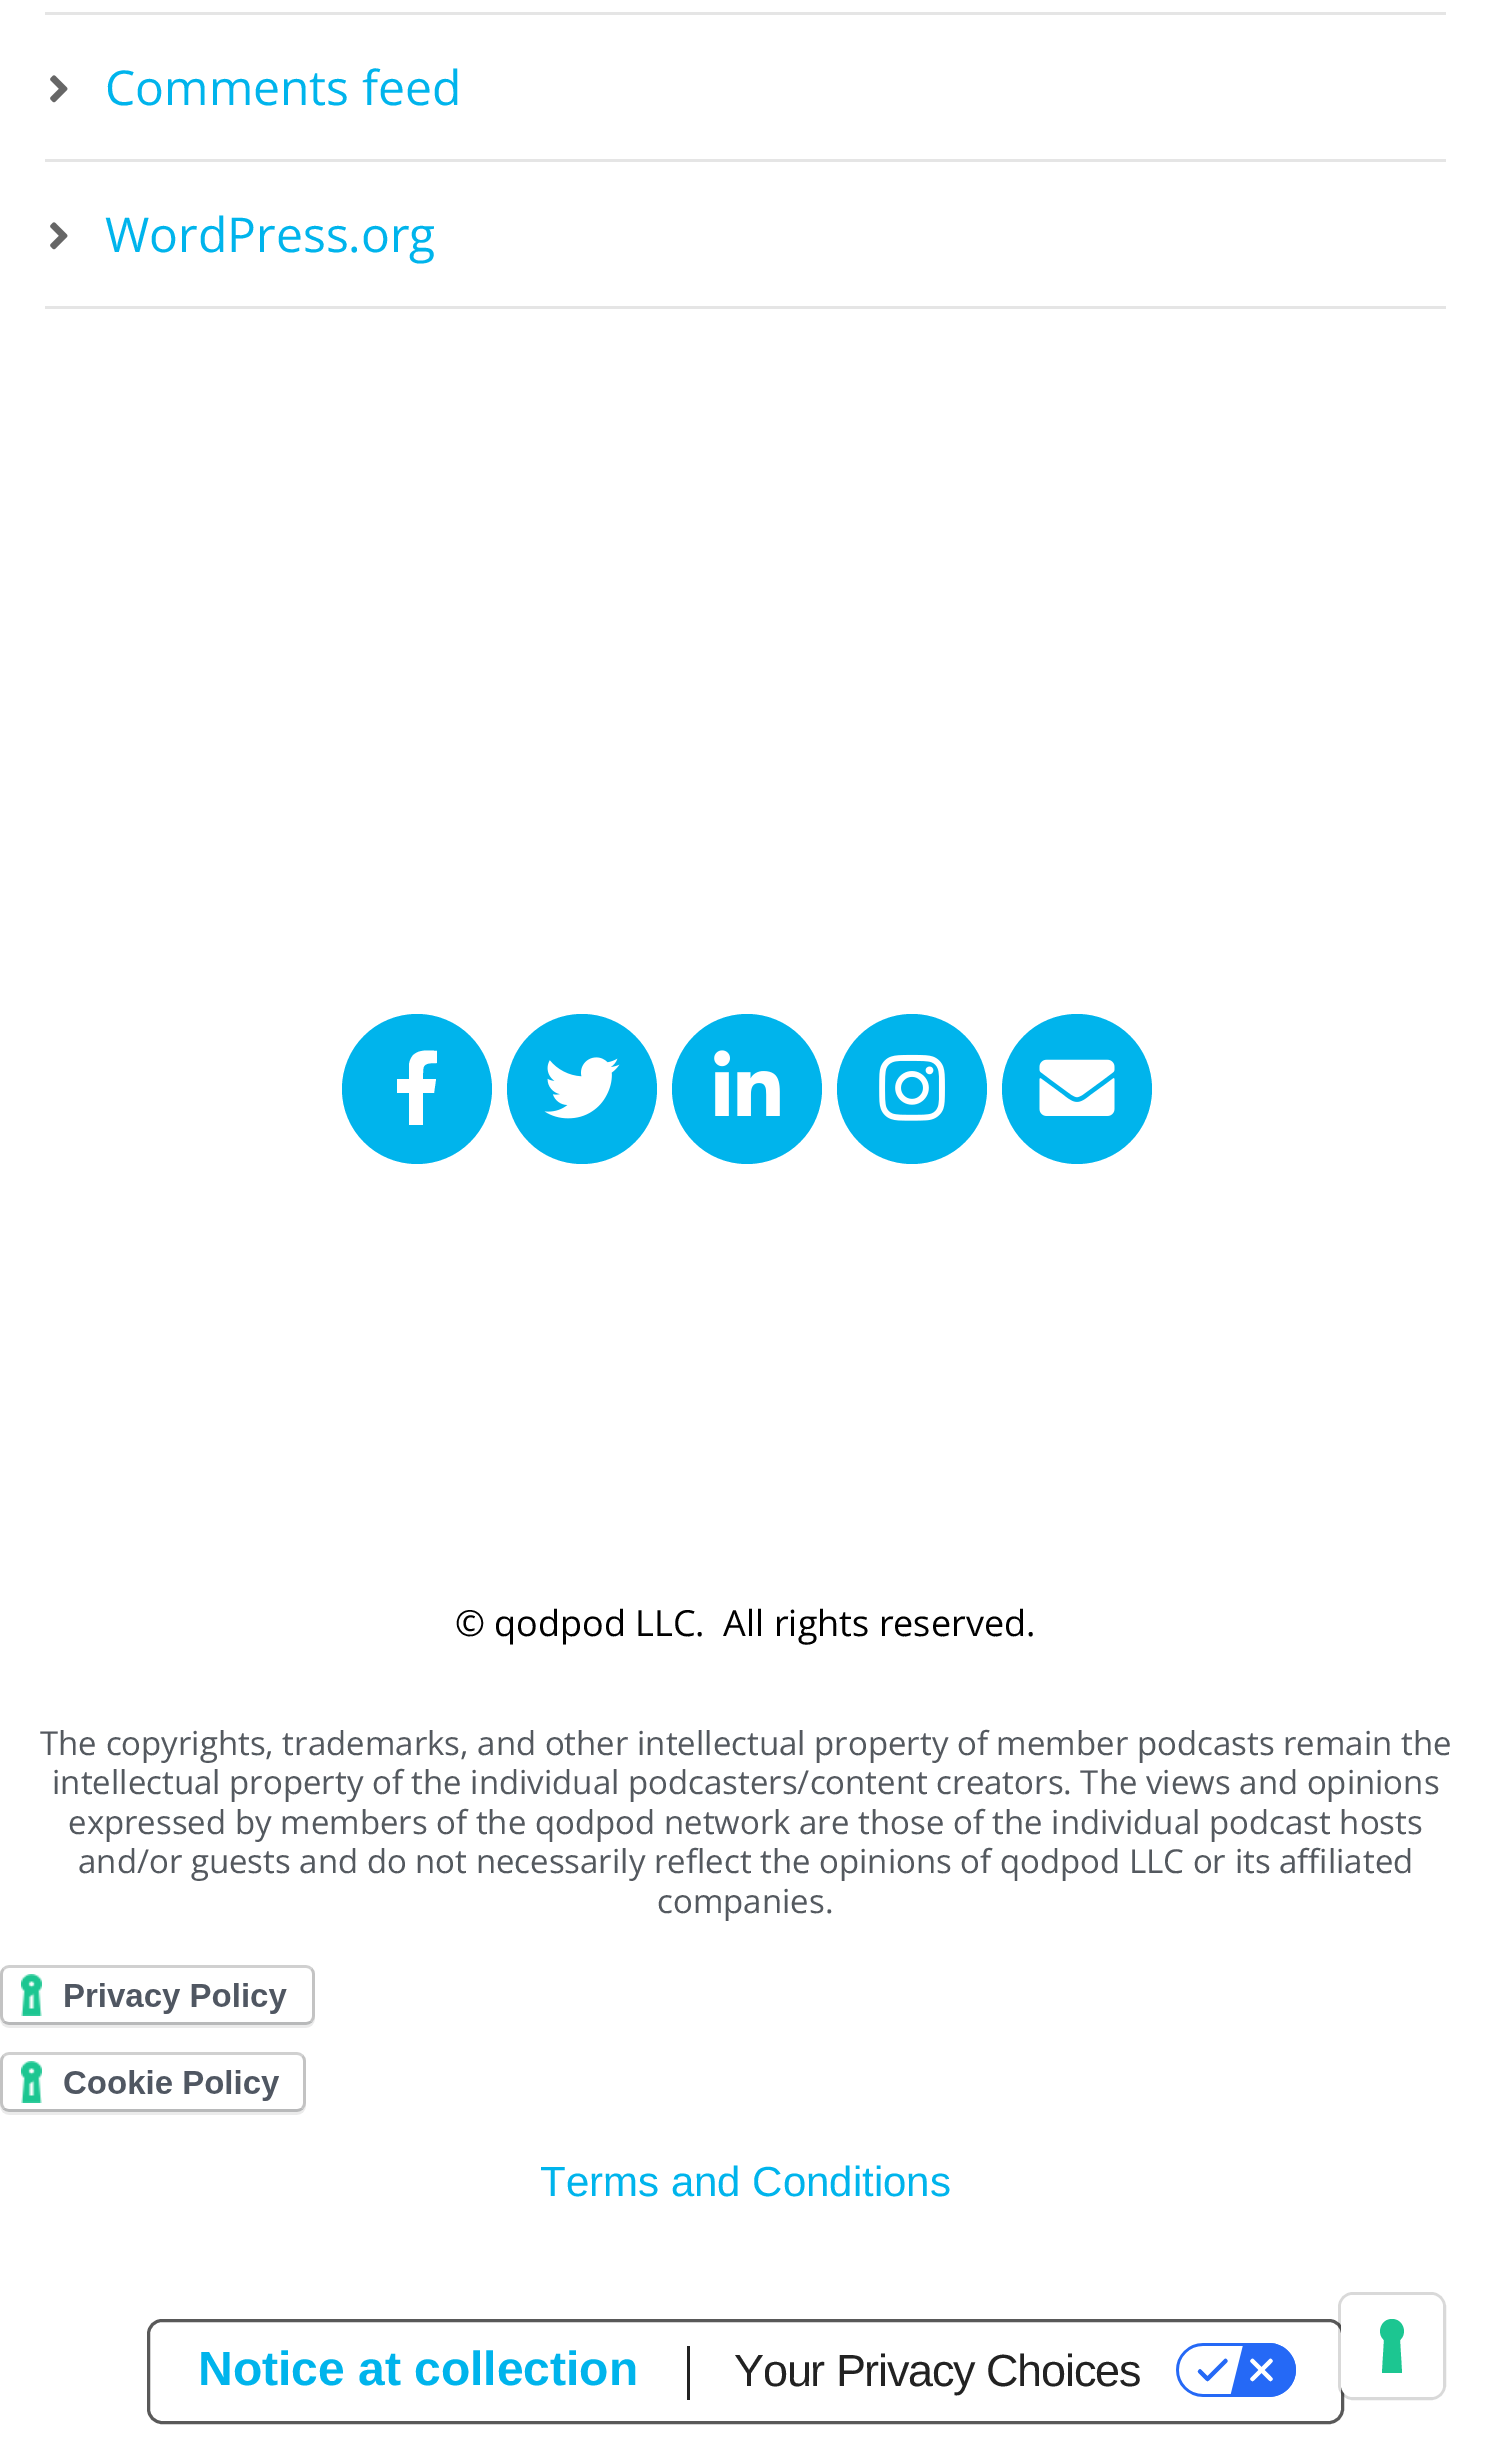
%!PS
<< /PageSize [1491 2445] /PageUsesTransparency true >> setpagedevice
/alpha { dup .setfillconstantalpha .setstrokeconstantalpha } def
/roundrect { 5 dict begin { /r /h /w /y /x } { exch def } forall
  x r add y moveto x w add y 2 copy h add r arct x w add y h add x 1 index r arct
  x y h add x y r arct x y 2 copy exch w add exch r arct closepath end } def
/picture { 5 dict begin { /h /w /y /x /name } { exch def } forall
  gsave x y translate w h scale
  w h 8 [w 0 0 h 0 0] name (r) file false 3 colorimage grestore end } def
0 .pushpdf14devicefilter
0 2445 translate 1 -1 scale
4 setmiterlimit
1 setgray
0 0 1491 2445 rectfill
0.898 setgray
45 12 1401 3 rectfill
45 159 1401 3 rectfill
(img1.rgb) 50 75 18 28 picture
/OpenSans-Regular [48 0 0 -48 0 0] selectfont
0 0.706 0.925 setrgbcolor
105 105 moveto (Comments feed) show
0.898 setgray
45 306 1401 3 rectfill
(img1.rgb) 50 222 18 28 picture
0 0.706 0.925 setrgbcolor
105 252 moveto (WordPress.org) show
newpath 417 1089 75 0 360 arc closepath fill
1 setgray
newpath 434 1093 moveto 423 1093 lineto 423 1125 lineto 409 1125 lineto 409 1093 lineto 397 1093 lineto 397 1079 lineto 409 1079 lineto 409 1065 lineto 411 1049 425 1050 437 1051 curveto 437 1063 lineto 422 1063 423 1065 423 1079 curveto 436 1079 lineto closepath fill
0 0.706 0.925 setrgbcolor
newpath 582 1089 75 0 360 arc closepath fill
(img2.rgb) 544 1057 76 62 picture
newpath 747 1089 75 0 360 arc closepath fill
(img3.rgb) 714 1050 66 66 picture
newpath 912 1089 75 0 360 arc closepath fill
(img4.rgb) 879 1054 66 67 picture
newpath 1077 1089 75 0 360 arc closepath fill
(img5.rgb) 1039 1059 76 57 picture
/OpenSans-Regular [36 0 0 -36 0 0] selectfont
0 setgray
455 1636 moveto (© qodpod LLC.  All rights reserved.) show
/OpenSans-Regular [33 0 0 -33 0 0] selectfont
0.329 0.349 0.373 setrgbcolor
40 1755 moveto (The copyrights, trademarks, and other intellectual property of member podcasts remain the) show
52 1794 moveto (intellectual property of the individual podcasters/content creators. The views and opinions) show
68 1834 moveto (expressed by members of the qodpod network are those of the individual podcast hosts) show
78 1873 moveto (and/or guests and do not necessarily reflect the opinions of qodpod LLC or its affiliated) show
657 1913 moveto (companies.) show
(img6.rgb) 0 1965 315 63 picture
(img7.rgb) 0 2052 306 63 picture
/LiberationSans-Regular [42 0 0 -42 0 0] selectfont
0 0.706 0.925 setrgbcolor
540 2196 moveto (Terms and Conditions) show
0.349 setgray
3 setlinewidth
148.5 2320.5 1194 102 13.5 roundrect stroke
/LiberationSans-Bold [48 0 0 -48 0 0] selectfont
0 0.706 0.925 setrgbcolor
198 2385 moveto (Notice at collection) show
0.133 setgray
687 2346 3 54 rectfill
/LiberationSans-Regular [45 0 0 -45 0 0] selectfont
734 2386 moveto -1.2 0 (Your Privacy Choices) ashow
(img8.rgb) 1176 2343 120 54 picture
0.15 alpha
0 setgray
1339.5 2293.5 105 105 13.5 roundrect stroke
1 alpha
1 setgray
1341 2295 102 102 12 roundrect fill
0.11 0.776 0.569 setrgbcolor
newpath 1392 2319 moveto 1403 2319 1408 2333 1400 2340 curveto 1402 2373 lineto 1382 2373 lineto 1384 2340 lineto 1376 2333 1381 2319 1392 2319 curveto closepath eofill
.poppdf14devicefilter showpage
